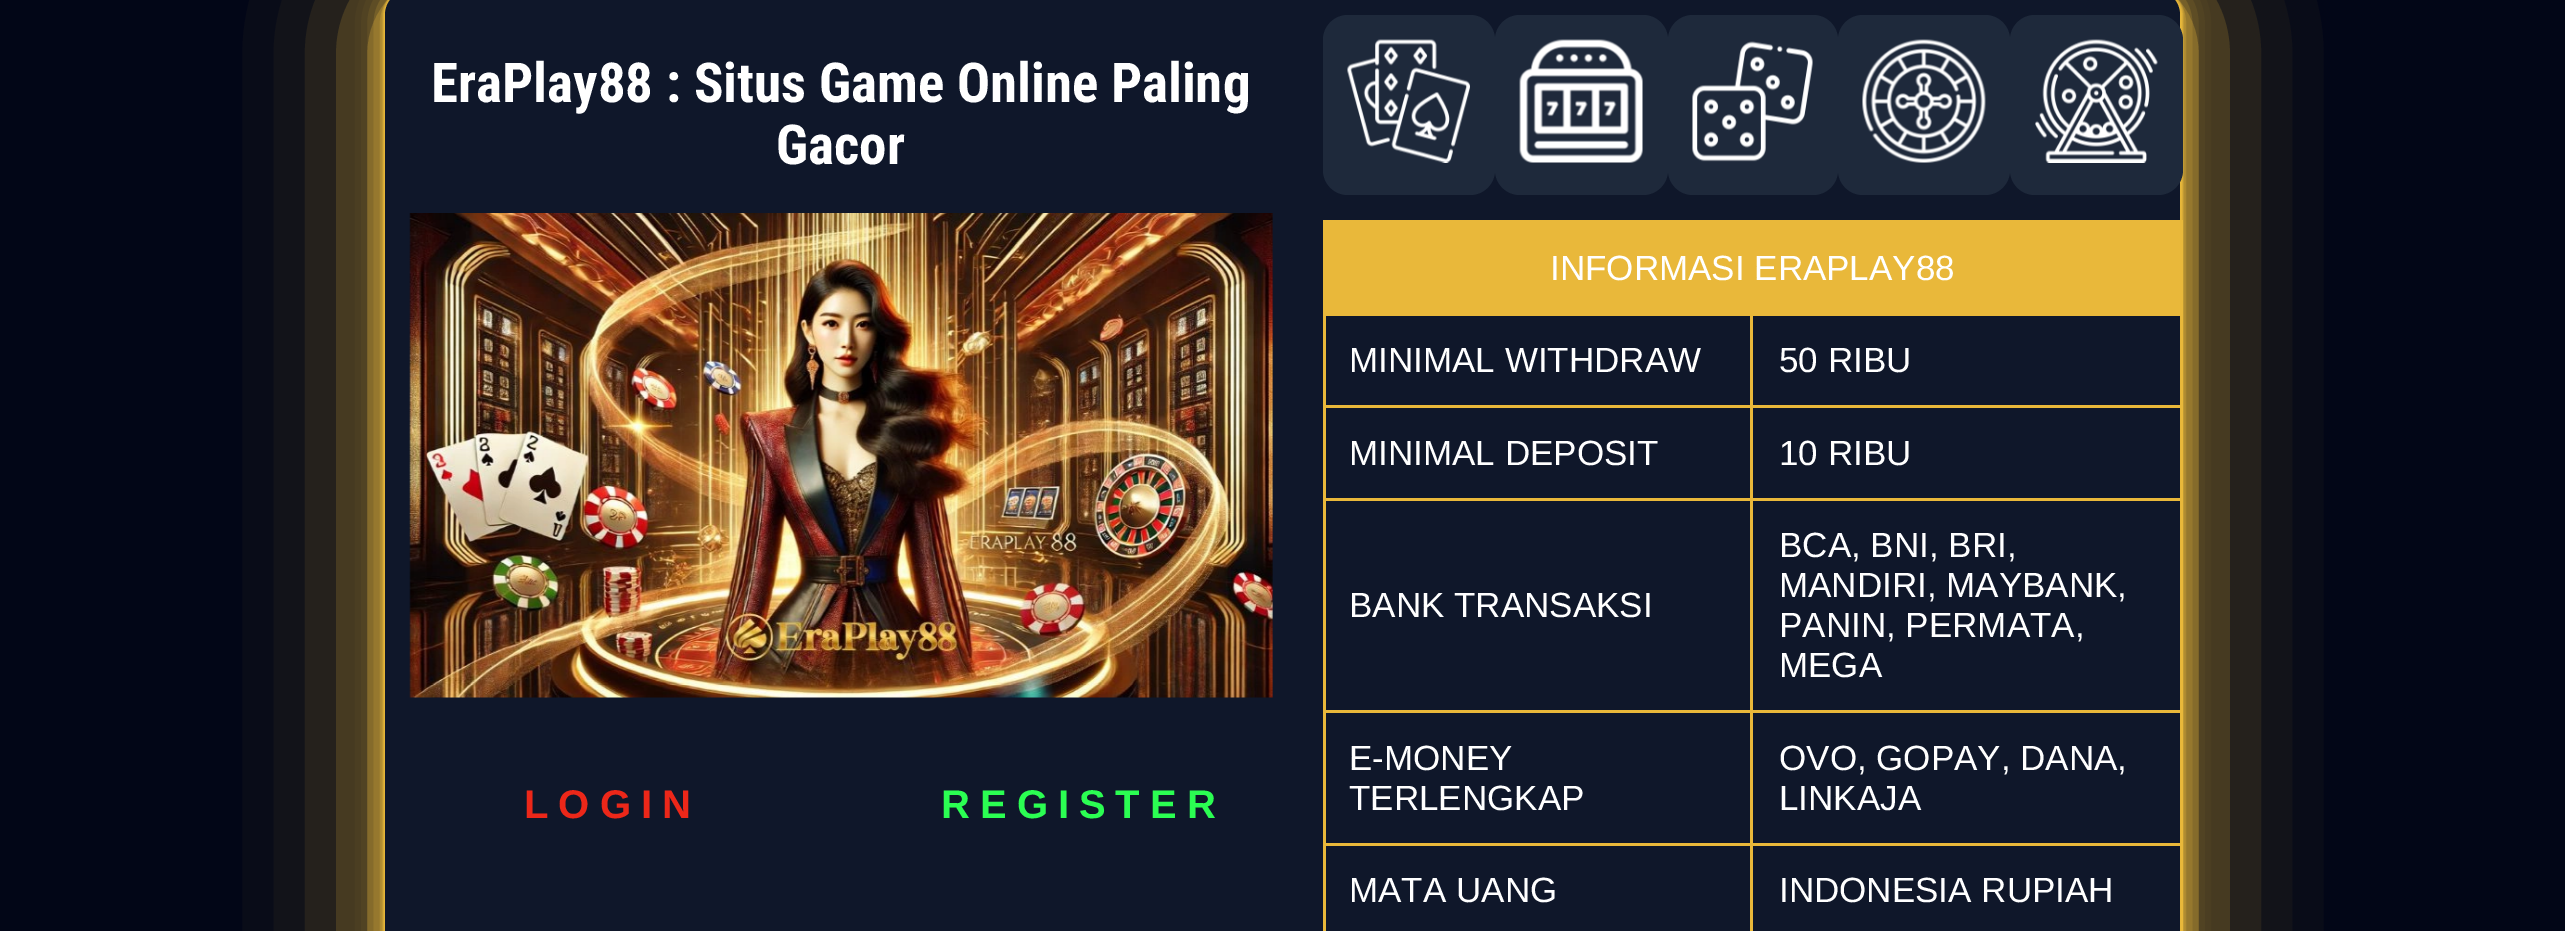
%!PS
<< /PageSize [2565 931] /PageUsesTransparency true >> setpagedevice
/alpha { dup .setfillconstantalpha .setstrokeconstantalpha } def
/roundrect { 5 dict begin { /r /h /w /y /x } { exch def } forall
  x r add y moveto x w add y 2 copy h add r arct x w add y h add x 1 index r arct
  x y h add x y r arct x y 2 copy exch w add exch r arct closepath end } def
/shadow { 12 dict begin { /a /b /q /h /w /y /x } { exch def } forall gsave /was 0 def
  9 -2 -9 { dup b mul 4 div /e exch def 1 sub .425 mul 2.718 exch exp 1 add a .99 .min exch div /now exch def
    1 1 now sub 1 was sub div sub alpha /was now def
    w h .min e 2 mul add 0 gt { x e sub y e sub w e 2 mul add h e 2 mul add
      q e add b .6 mul add w h .min 2 div e add .min 0 .max roundrect fill } if } for grestore end } def
/picture { 5 dict begin { /h /w /y /x /name } { exch def } forall
  gsave x y translate w h scale
  w h 8 [w 0 0 h 0 0] name (r) file false 3 colorimage grestore end } def
0 .pushpdf14devicefilter
0 931 translate 1 -1 scale
4 setmiterlimit
0.008 0.024 0.09 setrgbcolor
0 0 2565 931 rectfill
0.914 0.722 0.227 setrgbcolor
383 -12 1800 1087 28 62.5 1 shadow
383 -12 1800 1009 28 12.5 1 shadow
383 -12 1800 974 28 1 1 shadow
0.059 0.09 0.165 setrgbcolor
385 -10 1795 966 25 roundrect fill
/RobotoCondensed-Bold [55 0 0 -55 0 0] selectfont
1 setgray
431 102 moveto (EraPlay88 : Situs Game Online Paling) show
776 164 moveto (Gacor) show
(img1.rgb) 409 213 864 485 picture
/LiberationSans-Bold [40 0 0 -40 0 0] selectfont
0.925 0.153 0.098 setrgbcolor
524 818 moveto 10 0 (LOGIN) ashow
0.169 0.996 0.322 setrgbcolor
941 818 moveto 10 0 (REGISTER) ashow
0.118 0.161 0.231 setrgbcolor
1323 15 172 180 25 roundrect fill
(img2.rgb) 1347 39 123 124 picture
1495 15 173 180 25 roundrect fill
(img3.rgb) 1519 39 124 124 picture
1668 15 170 180 25 roundrect fill
(img4.rgb) 1692 41 121 121 picture
1838 15 172 180 25 roundrect fill
(img5.rgb) 1862 39 124 124 picture
2010 15 173 180 25 roundrect fill
(img6.rgb) 2035 39 123 124 picture
0.914 0.722 0.227 setrgbcolor
1323 220 860 96 rectfill
/LiberationSans-Regular [35 0 0 -35 0 0] selectfont
1 setgray
1550 280 moveto (INFORMASI ERAPLAY88) show
1349 372 moveto (MINIMAL WITHDRAW) show
1779 372 moveto (50 RIBU) show
0.914 0.722 0.227 setrgbcolor
1323 405 860 3 rectfill
1323 498 860 3 rectfill
1323 710 860 3 rectfill
1323 843 860 3 rectfill
2181 843 2 88 rectfill
2181 710 2 135 rectfill
2181 498 2 215 rectfill
2181 313 2 187 rectfill
1323 843 3 88 rectfill
1323 710 3 135 rectfill
1323 498 3 215 rectfill
1323 313 3 187 rectfill
1 setgray
1349 465 moveto (MINIMAL DEPOSIT) show
1779 465 moveto (10 RIBU) show
1349 617 moveto (BANK TRANSAKSI) show
1779 557 moveto (BCA, BNI, BRI,) show
1779 597 moveto (MANDIRI, MAYBANK,) show
1779 637 moveto (PANIN, PERMATA,) show
1779 677 moveto (MEGA) show
1349 770 moveto (E-MONEY) show
1349 810 moveto (TERLENGKAP) show
1779 770 moveto (OVO, GOPAY, DANA,) show
1779 810 moveto (LINKAJA) show
1349 902 moveto (MATA UANG) show
0.914 0.722 0.227 setrgbcolor
1750 313 3 618 rectfill
1 setgray
1779 902 moveto (INDONESIA RUPIAH) show
.poppdf14devicefilter showpage
